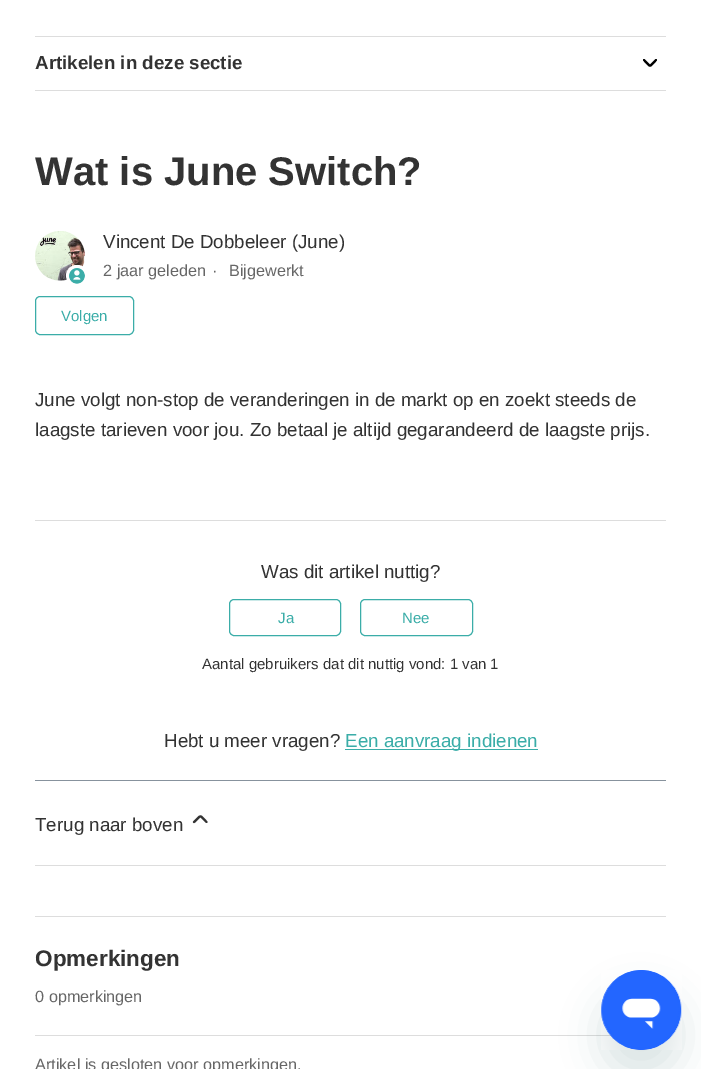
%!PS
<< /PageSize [701 1069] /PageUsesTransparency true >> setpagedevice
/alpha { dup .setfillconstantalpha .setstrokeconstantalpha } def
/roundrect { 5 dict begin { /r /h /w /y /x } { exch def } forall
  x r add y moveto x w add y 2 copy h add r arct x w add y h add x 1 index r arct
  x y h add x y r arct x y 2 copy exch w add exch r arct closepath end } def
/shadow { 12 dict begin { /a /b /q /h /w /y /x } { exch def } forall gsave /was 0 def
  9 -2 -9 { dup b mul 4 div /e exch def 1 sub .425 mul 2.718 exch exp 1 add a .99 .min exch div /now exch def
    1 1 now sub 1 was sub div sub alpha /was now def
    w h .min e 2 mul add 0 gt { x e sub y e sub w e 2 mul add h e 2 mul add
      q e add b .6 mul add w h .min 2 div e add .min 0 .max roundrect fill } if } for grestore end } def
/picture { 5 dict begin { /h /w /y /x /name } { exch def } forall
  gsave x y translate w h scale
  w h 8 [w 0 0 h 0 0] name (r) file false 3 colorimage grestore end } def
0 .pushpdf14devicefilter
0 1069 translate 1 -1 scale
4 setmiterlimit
1 setgray
0 0 701 1069 rectfill
0.867 setgray
35 36 631 1 rectfill
35 90 631 1 rectfill
/LiberationSans-Bold [18.75 0 0 -18.75 0 0] selectfont
0.2 setgray
35 69 moveto (Artikelen in deze sectie) show
0 setgray
2.1 setlinewidth
1 setlinecap
newpath 644 60 moveto 651.5 67.5 648.5 67.5 656 60 curveto stroke
/LiberationSans-Bold [40 0 0 -40 0 0] selectfont
0.2 setgray
35 185 moveto (Wat is June Switch?) show
(img1.rgb) 35 231 50 50 picture
1 setgray
67.5 266.5 19 18 9 roundrect gsave fill grestore
3 setlinewidth
0 setlinecap
stroke
(img2.rgb) 69 268 16 16 picture
/LiberationSans-Regular [18.75 0 0 -18.75 0 0] selectfont
0.2 setgray
103 248 moveto (Vincent De Dobbeleer \(June\)) show
/LiberationSans-Regular [16.25 0 0 -16.25 0 0] selectfont
0.4 setgray
103 276 moveto (2 jaar geleden) show
212 276 moveto (·) show
229 276 moveto (Bijgewerkt) show
0.231 0.678 0.659 setrgbcolor
1 setlinewidth
35.5 296.5 98 38 4.5 roundrect stroke
/LiberationSans-Regular [15 0 0 -15 0 0] selectfont
61 321 moveto (Volgen) show
/LiberationSans-Regular [18.75 0 0 -18.75 0 0] selectfont
0.2 setgray
35 406 moveto (June volgt non-stop de veranderingen in de markt op en zoekt steeds de) show
35 436 moveto (laagste tarieven voor jou. Zo betaal je altijd gegarandeerd de laagste prijs.) show
0.867 setgray
35 520 631 1 rectfill
0.2 setgray
261 578 moveto (Was dit artikel nuttig?) show
0.231 0.678 0.659 setrgbcolor
229.5 599.5 111 36 4.5 roundrect stroke
/LiberationSans-Regular [15 0 0 -15 0 0] selectfont
278 623 moveto (Ja) show
360.5 599.5 112 36 4.5 roundrect stroke
402 623 moveto (Nee) show
0.2 setgray
202 669 moveto (Aantal gebruikers dat dit nuttig vond: 1 van 1) show
/LiberationSans-Regular [18.75 0 0 -18.75 0 0] selectfont
164 747 moveto (Hebt u meer vragen?) show
0.231 0.678 0.659 setrgbcolor
345 749 193 1 rectfill
345 747 moveto (Een aanvraag indienen) show
0.529 0.573 0.616 setrgbcolor
35 780 631 1 rectfill
0.2 setgray
35 831 moveto (Terug naar boven) show
2.1 setlinewidth
1 setlinecap
newpath 206.5 822 moveto 199 814.5 202 814.5 194 822 curveto stroke
0.867 setgray
35 865 631 1 rectfill
35 916 631 1 rectfill
35 1035 577 1 rectfill
/LiberationSans-Bold [22.5 0 0 -22.5 0 0] selectfont
0.2 setgray
35 966 moveto (Opmerkingen) show
/LiberationSans-Regular [16.25 0 0 -16.25 0 0] selectfont
0.4 setgray
35 1002 moveto (0 opmerkingen) show
35 1070 moveto (Artikel is gesloten voor opmerkingen.) show
0.09 0.286 0.302 setrgbcolor
601 995 80 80 40 19 0.15 shadow
(img3.rgb) 601 970 81 80 picture
.poppdf14devicefilter showpage
